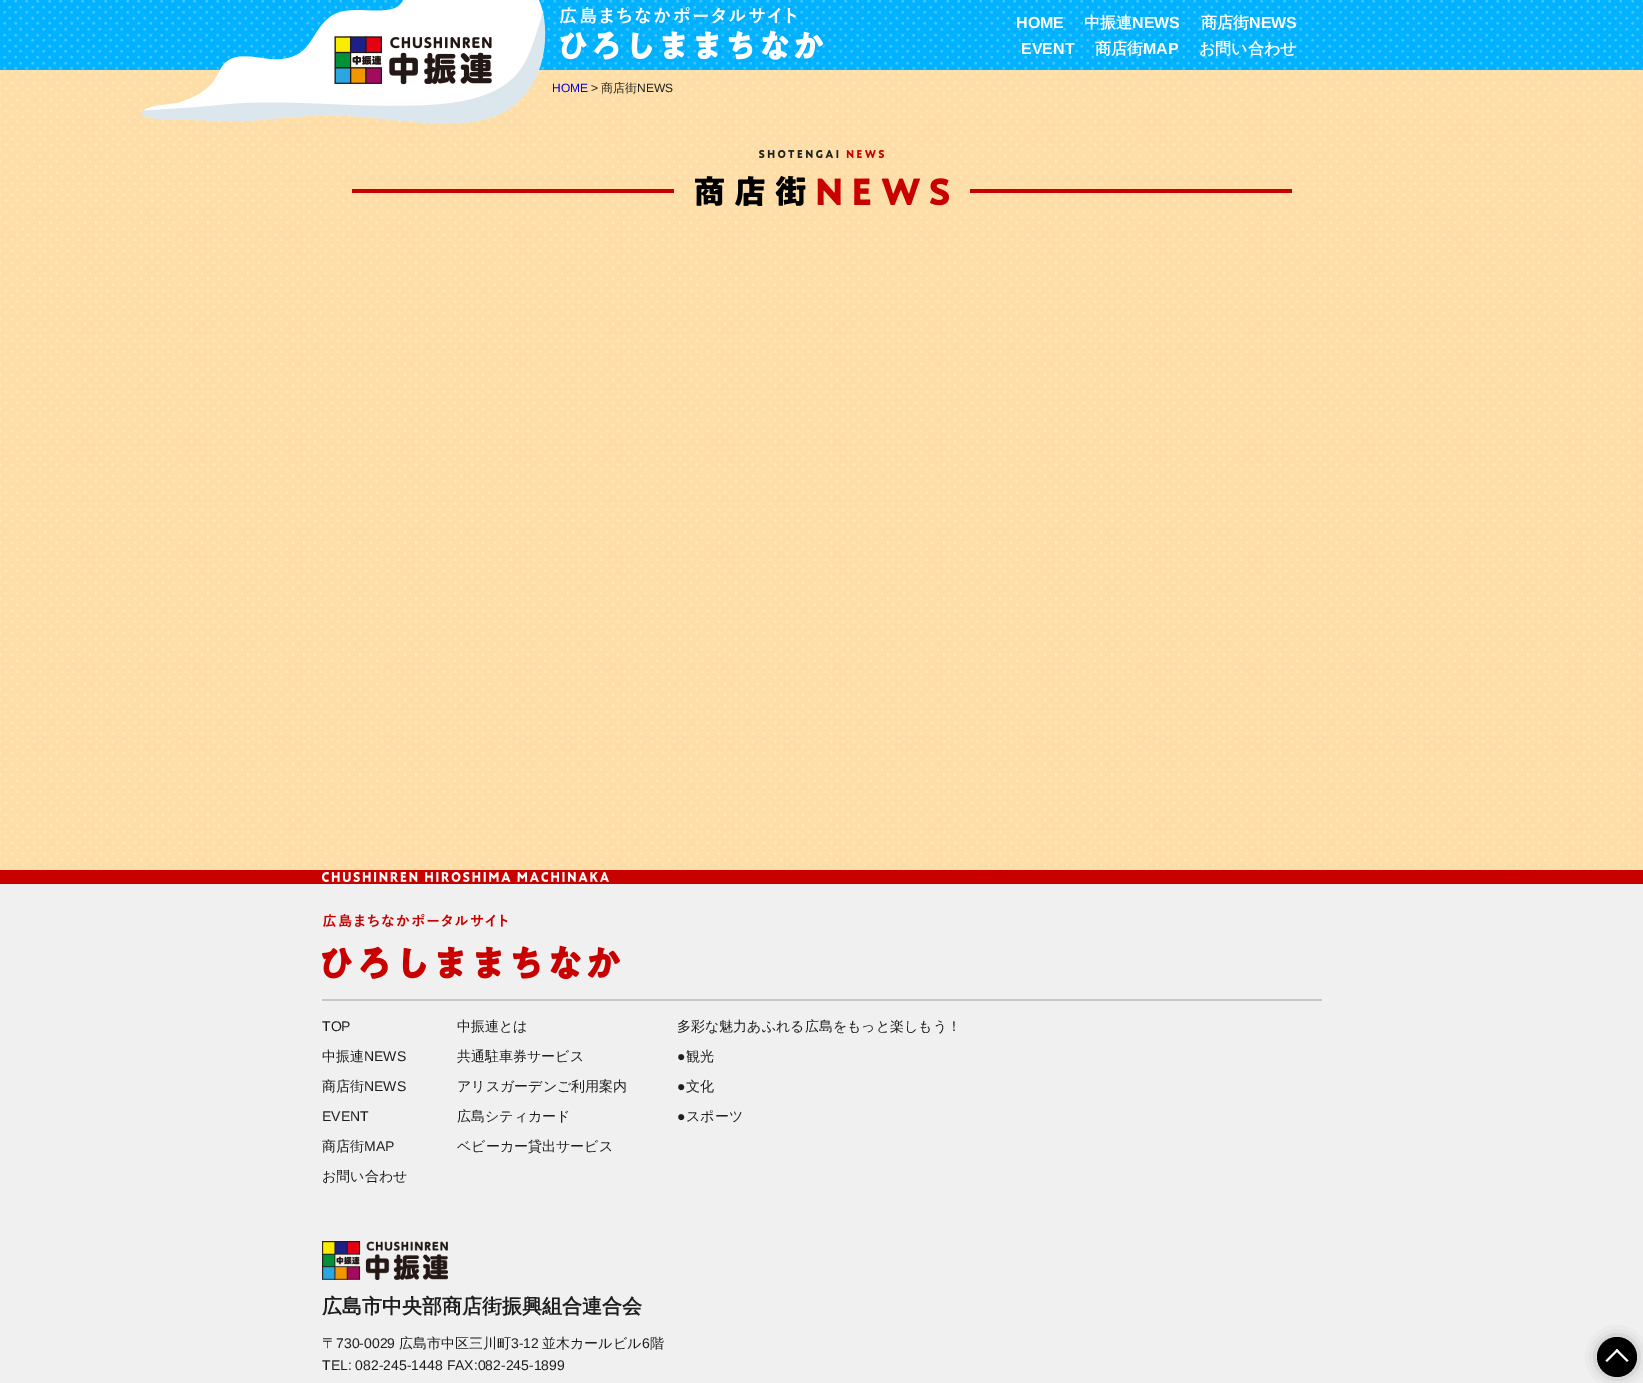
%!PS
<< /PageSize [1643 1383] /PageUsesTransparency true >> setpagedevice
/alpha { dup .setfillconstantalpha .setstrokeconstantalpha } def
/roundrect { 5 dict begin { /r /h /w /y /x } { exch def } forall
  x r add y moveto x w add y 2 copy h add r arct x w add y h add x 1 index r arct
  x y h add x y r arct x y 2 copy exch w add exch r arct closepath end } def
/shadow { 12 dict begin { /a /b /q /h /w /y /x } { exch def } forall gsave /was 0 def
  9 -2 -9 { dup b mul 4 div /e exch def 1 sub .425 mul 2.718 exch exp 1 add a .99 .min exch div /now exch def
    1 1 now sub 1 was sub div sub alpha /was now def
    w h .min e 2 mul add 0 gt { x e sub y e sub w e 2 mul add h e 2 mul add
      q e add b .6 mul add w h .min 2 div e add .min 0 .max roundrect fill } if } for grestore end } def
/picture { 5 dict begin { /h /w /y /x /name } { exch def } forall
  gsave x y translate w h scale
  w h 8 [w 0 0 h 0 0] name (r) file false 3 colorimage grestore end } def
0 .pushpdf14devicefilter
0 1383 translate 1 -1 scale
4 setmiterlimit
0.941 setgray
0 0 1643 1383 rectfill
(img1.rgb) 0 0 1643 70 picture
(img4.rgb) 0 70 1643 800 picture
(img2.rgb) 142 0 404 124 picture
(img3.rgb) 558 6 267 58 picture
/LiberationSans-Bold [16 0 0 -16 0 0] selectfont
1 setgray
1016 28 moveto (HOME) show
/WenQuanYiZenHei-Bold [16 0 0 -16 0 0] selectfont
1084 28 moveto (中振連) show
/LiberationSans-Bold [16 0 0 -16 0 0] selectfont
1132 28 moveto (NEWS) show
/WenQuanYiZenHei-Bold [16 0 0 -16 0 0] selectfont
1201 28 moveto (商店街) show
/LiberationSans-Bold [16 0 0 -16 0 0] selectfont
1249 28 moveto (NEWS) show
1021 54 moveto (EVENT) show
/WenQuanYiZenHei-Bold [16 0 0 -16 0 0] selectfont
1095 54 moveto (商店街) show
/LiberationSans-Bold [16 0 0 -16 0 0] selectfont
1143 54 moveto (MAP) show
/WenQuanYiZenHei-Bold [16 0 0 -16 0 0] selectfont
1199 54 moveto (お問い合わせ) show
/LiberationSans-Regular [12 0 0 -12 0 0] selectfont
0 0 0.933 setrgbcolor
552 92 moveto (HOME) show
0.122 setgray
591 92 moveto (>) show
/WenQuanYiZenHei-Medium [12 0 0 -12 0 0] selectfont
601 92 moveto (商店街) show
/LiberationSans-Regular [12 0 0 -12 0 0] selectfont
637 92 moveto (NEWS) show
(img5.rgb) 759 150 125 8 picture
0.784 0 0 setrgbcolor
352 189 322 4 rectfill
(img6.rgb) 695 176 254 30 picture
970 189 322 4 rectfill
0 870 1643 14 rectfill
(img7.rgb) 322 872 287 10 picture
0.784 setgray
322 999 1000 2 rectfill
(img8.rgb) 322 914 298 65 picture
/LiberationSans-Regular [14 0 0 -14 0 0] selectfont
0.122 setgray
322 1031 moveto (TOP) show
/WenQuanYiZenHei-Medium [14 0 0 -14 0 0] selectfont
322 1061 moveto (中振連) show
/LiberationSans-Regular [14 0 0 -14 0 0] selectfont
364 1061 moveto (NEWS) show
/WenQuanYiZenHei-Medium [14 0 0 -14 0 0] selectfont
322 1091 moveto (商店街) show
/LiberationSans-Regular [14 0 0 -14 0 0] selectfont
364 1091 moveto (NEWS) show
322 1121 moveto (EVENT) show
/WenQuanYiZenHei-Medium [14 0 0 -14 0 0] selectfont
322 1151 moveto (商店街) show
/LiberationSans-Regular [14 0 0 -14 0 0] selectfont
364 1151 moveto (MAP) show
/WenQuanYiZenHei-Medium [14 0 0 -14 0 0] selectfont
322 1181 moveto (お問い合わせ) show
457 1031 moveto (中振連とは) show
457 1061 moveto (共通駐車券サービス) show
457 1091 moveto (アリスガーデンご利用案内) show
457 1121 moveto (広島シティカード) show
457 1151 moveto (ベビーカー貸出サービス) show
677 1031 moveto (多彩な魅力あふれる広島をもっと楽しもう！) show
/LiberationSans-Regular [14 0 0 -14 0 0] selectfont
677 1061 moveto (●) show
/WenQuanYiZenHei-Medium [14 0 0 -14 0 0] selectfont
686 1061 moveto (観光) show
/LiberationSans-Regular [14 0 0 -14 0 0] selectfont
677 1091 moveto (●) show
/WenQuanYiZenHei-Medium [14 0 0 -14 0 0] selectfont
686 1091 moveto (文化) show
/LiberationSans-Regular [14 0 0 -14 0 0] selectfont
677 1121 moveto (●) show
/WenQuanYiZenHei-Medium [14 0 0 -14 0 0] selectfont
686 1121 moveto (スポーツ) show
(img9.rgb) 322 1241 126 39 picture
/WenQuanYiZenHei-Bold [20 0 0 -20 0 0] selectfont
322 1313 moveto (広島市中央部商店街振興組合連合会) show
/WenQuanYiZenHei-Medium [14 0 0 -14 0 0] selectfont
322 1348 moveto (〒) show
/LiberationSans-Regular [14 0 0 -14 0 0] selectfont
336 1348 moveto (730-0029) show
/WenQuanYiZenHei-Medium [14 0 0 -14 0 0] selectfont
399 1348 moveto (広島市中区三川町) show
/LiberationSans-Regular [14 0 0 -14 0 0] selectfont
511 1348 moveto (3-12) show
/WenQuanYiZenHei-Medium [14 0 0 -14 0 0] selectfont
542 1348 moveto (並木カールビル) show
/LiberationSans-Regular [14 0 0 -14 0 0] selectfont
642 1348 moveto (6) show
/WenQuanYiZenHei-Medium [14 0 0 -14 0 0] selectfont
650 1348 moveto (階) show
/LiberationSans-Regular [14 0 0 -14 0 0] selectfont
322 1370 moveto (TEL: 082-245-1448 FAX:082-245-1899) show
0 setgray
1603 1343 28 28 14 8 0.6 shadow
newpath 1617 1357 20 0 360 arc closepath fill
1 setgray
newpath 1605.5 1360.5 moveto 1617 1349 lineto 1618.5 1350.5 lineto 1607 1362 lineto closepath fill
newpath 1615.5 1350.5 moveto 1617 1349 lineto 1628.5 1360.5 lineto 1627 1362 lineto closepath fill
.poppdf14devicefilter showpage
